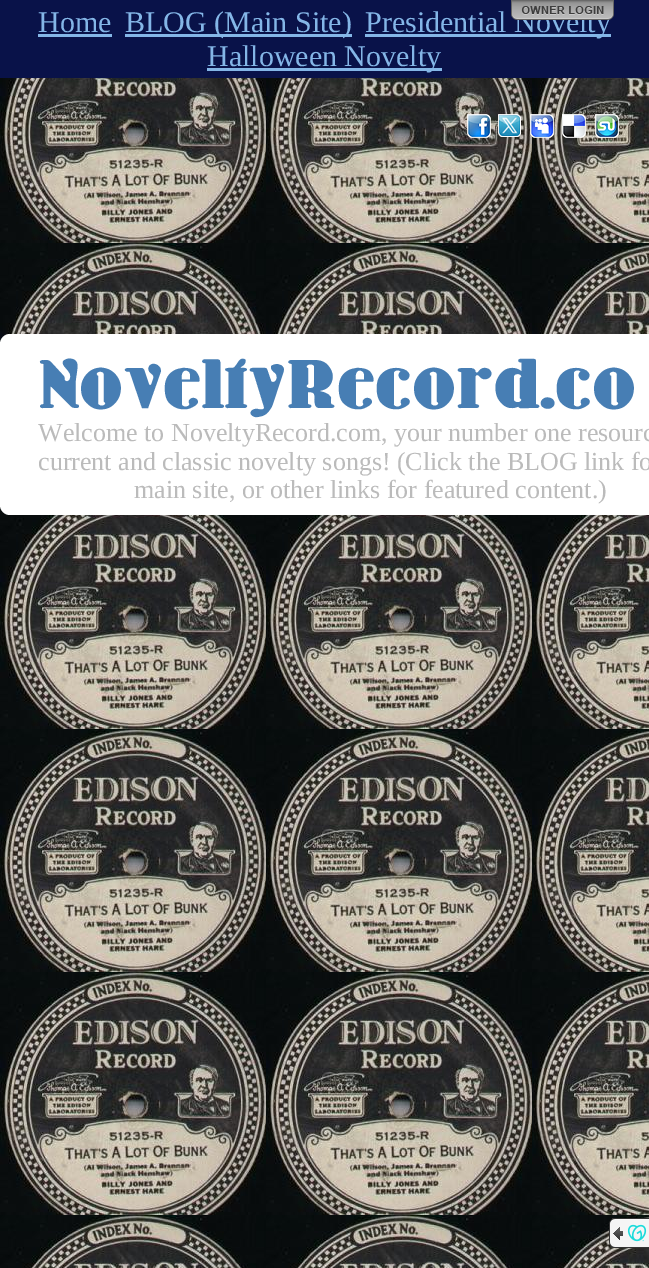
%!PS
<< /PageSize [649 1268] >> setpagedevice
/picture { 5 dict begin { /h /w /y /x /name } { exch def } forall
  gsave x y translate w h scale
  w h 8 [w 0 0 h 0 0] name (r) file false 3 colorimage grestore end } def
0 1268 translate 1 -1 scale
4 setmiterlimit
1 setgray
0 0 649 1268 rectfill
0.035 0.071 0.286 setrgbcolor
0 0 649 78 rectfill
0.518 0.714 0.906 setrgbcolor
365 34 246 3 rectfill
/LiberationSerif-Regular [30 0 0 -30 0 0] selectfont
365 32 moveto (Presidential Novelty) show
(img1.rgb) 511 0 103 20 picture
38 32 moveto (Home) show
38 34 74 3 rectfill
125 34 227 3 rectfill
125 32 moveto (BLOG \(Main Site\)) show
207 68 235 3 rectfill
207 66 moveto (Halloween Novelty) show
(img10.rgb) 0 78 649 1190 picture
(img2.rgb) 467 114 24 24 picture
(img3.rgb) 498 114 23 23 picture
(img4.rgb) 530 114 24 24 picture
(img5.rgb) 562 114 24 24 picture
(img6.rgb) 595 114 24 24 picture
1 setgray
newpath 10 334 moveto 649 334 lineto 649 515 lineto 10 515 lineto 4.5 515 0 510.5 0 505 curveto 0 344 lineto 0 338.5 4.5 334 10 334 curveto closepath fill
/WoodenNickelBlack-Black [65 0 0 -65 0 0] selectfont
0.278 0.494 0.706 setrgbcolor
38 406 moveto (NoveltyRecord.co) show
/LiberationSerif-Regular [26 0 0 -26 0 0] selectfont
0.733 setgray
38 441 moveto (Welcome to NoveltyRecord.com, your number one resourc) show
38 470 moveto (current and classic novelty songs! \(Click the BLOG link fo) show
134 498 moveto (main site, or other links for featured content.\)) show
(img7.rgb) 612 1218 37 30 picture
(img8.rgb) 609 1219 14 28 picture
(img9.rgb) 627 1224 20 18 picture
showpage
